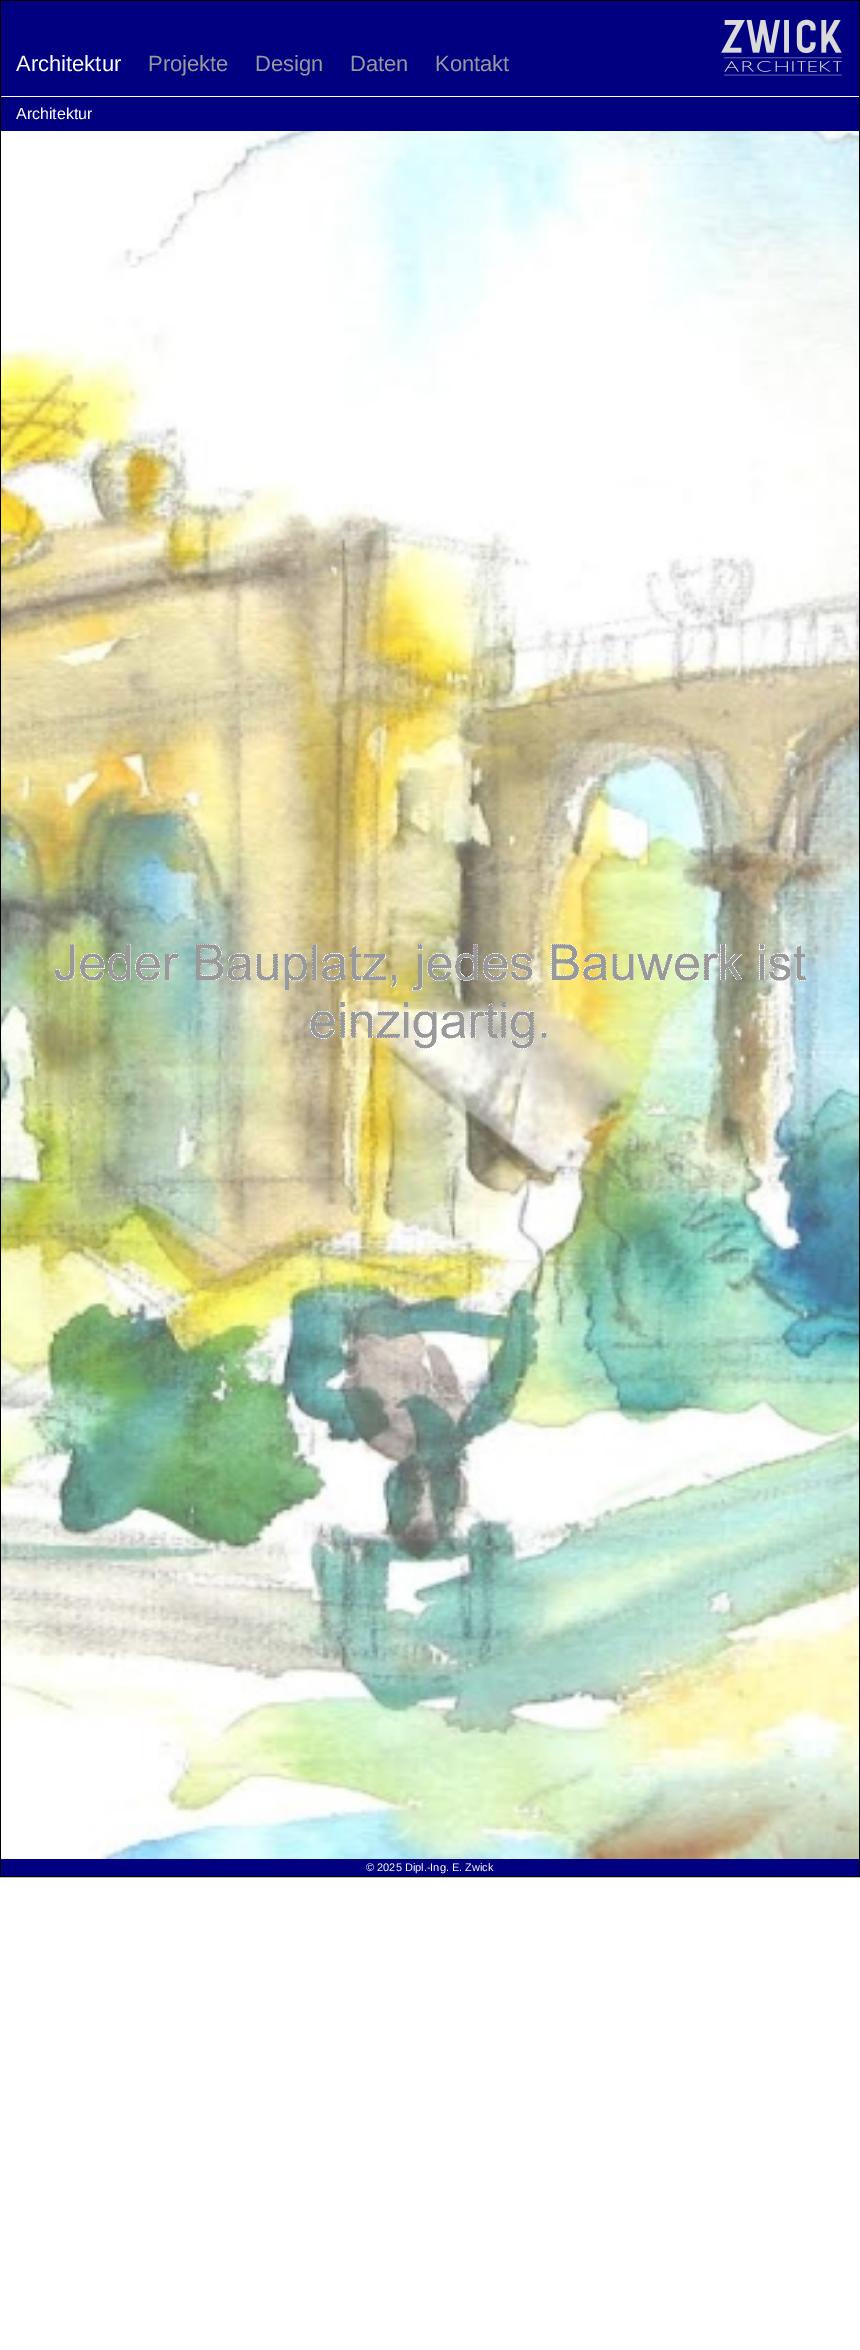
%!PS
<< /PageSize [860 2350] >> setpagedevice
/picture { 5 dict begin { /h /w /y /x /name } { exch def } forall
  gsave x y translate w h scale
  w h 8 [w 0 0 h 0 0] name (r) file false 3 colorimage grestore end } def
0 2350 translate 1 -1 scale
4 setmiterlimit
1 setgray
0 0 860 2350 rectfill
0 setgray
0.5 0.5 859 1876 rectstroke
0.004 0 0.502 setrgbcolor
1 1 858 95 rectfill
/LiberationSans-Regular [22 0 0 -22 0 0] selectfont
1 setgray
16 71 moveto (Architektur) show
0.596 0.6 0.62 setrgbcolor
148 71 moveto (Projekte) show
255 71 moveto (Design) show
350 71 moveto (Daten) show
435 71 moveto (Kontakt) show
(img1.rgb) 721 19 121 57 picture
(img2.rgb) 1 131 858 1728 picture
0.004 0 0.502 setrgbcolor
1 97 858 34 rectfill
/LiberationSans-Regular [16 0 0 -16 0 0] selectfont
1 setgray
16 119 moveto (Architektur) show
(img3.rgb) 55 944 751 105 picture
0.004 0 0.502 setrgbcolor
1 1859 858 17 rectfill
/LiberationSans-Regular [11 0 0 -11 0 0] selectfont
1 setgray
366 1871 moveto (© 2025 Dipl.-Ing. E. Zwick) show
showpage
